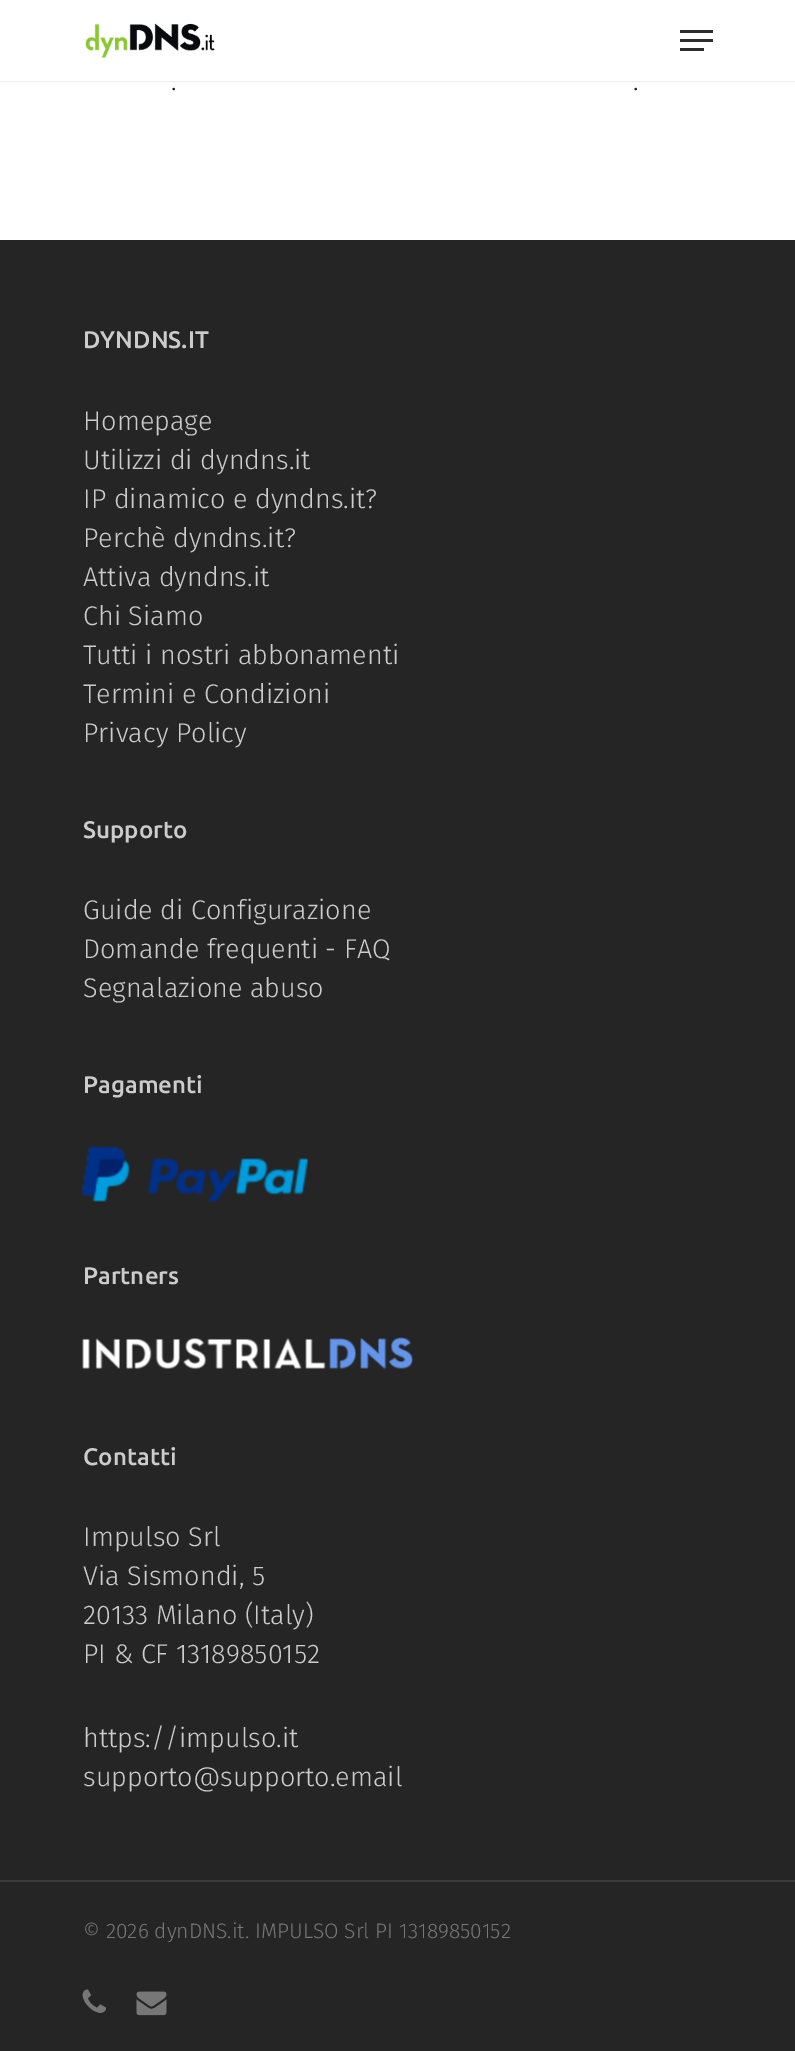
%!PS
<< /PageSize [795 2051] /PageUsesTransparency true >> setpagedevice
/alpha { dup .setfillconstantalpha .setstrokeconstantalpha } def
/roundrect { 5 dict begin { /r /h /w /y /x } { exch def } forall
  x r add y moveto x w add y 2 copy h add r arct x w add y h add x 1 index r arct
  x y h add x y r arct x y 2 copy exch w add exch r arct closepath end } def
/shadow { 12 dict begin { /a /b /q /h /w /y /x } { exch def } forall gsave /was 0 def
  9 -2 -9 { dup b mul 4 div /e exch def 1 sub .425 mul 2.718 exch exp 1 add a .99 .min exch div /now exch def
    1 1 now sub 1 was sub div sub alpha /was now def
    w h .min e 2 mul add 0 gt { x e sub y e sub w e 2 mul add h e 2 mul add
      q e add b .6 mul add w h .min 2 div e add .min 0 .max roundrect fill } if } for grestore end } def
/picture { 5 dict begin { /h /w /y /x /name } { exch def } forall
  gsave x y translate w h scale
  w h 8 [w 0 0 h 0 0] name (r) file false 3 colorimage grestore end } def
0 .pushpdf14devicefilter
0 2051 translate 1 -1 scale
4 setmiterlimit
1 setgray
0 0 795 2051 rectfill
0 setgray
0 0 795 81 0 1.5 0.14 shadow
1 setgray
0 0 795 81 rectfill
(img1.rgb) 85 23 130 35 picture
0.176 setgray
680 30 33 3 rectfill
680 48 24 3 rectfill
680 39 33 3 rectfill
/FiraSans-Light [27 0 0 -27 0 0] selectfont
0.137 0.122 0.125 setrgbcolor
171 90 moveto (.) show
633 90 moveto (.) show
0.145 setgray
0 240 795 1811 rectfill
/Ubuntu-Medium [24 0 0 -24 0 0] selectfont
0.8 setgray
83 348 moveto (DYNDNS.IT) show
/FiraSans-Light [27 0 0 -27 0 0] selectfont
83 430 moveto (Homepage) show
83 469 moveto (Utilizzi di dyndns.it) show
83 508 moveto (IP dinamico e dyndns.it?) show
83 547 moveto (Perchè dyndns.it?) show
83 586 moveto (Attiva dyndns.it) show
83 625 moveto (Chi Siamo) show
83 664 moveto (Tutti i nostri abbonamenti) show
83 703 moveto (Termini e Condizioni) show
83 742 moveto (Privacy Policy) show
/Ubuntu-Medium [24 0 0 -24 0 0] selectfont
83 838 moveto (Supporto) show
/FiraSans-Light [27 0 0 -27 0 0] selectfont
83 919 moveto (Guide di Configurazione) show
83 958 moveto (Domande frequenti - FAQ) show
83 997 moveto (Segnalazione abuso) show
/Ubuntu-Medium [24 0 0 -24 0 0] selectfont
83 1093 moveto (Pagamenti) show
(img2.rgb) 82 1146 226 56 picture
83 1284 moveto (Partners) show
(img3.rgb) 82 1337 331 33 picture
83 1465 moveto (Contatti) show
/FiraSans-Light [27 0 0 -27 0 0] selectfont
83 1546 moveto (Impulso Srl) show
83 1585 moveto (Via Sismondi, 5) show
83 1624 moveto (20133 Milano \(Italy\)) show
83 1663 moveto (PI & CF 13189850152) show
83 1747 moveto (https://impulso.it) show
83 1786 moveto (supporto@supporto.email) show
0.231 setgray
0 1880 795 2 rectfill
/FiraSans-Light [21 0 0 -21 0 0] selectfont
0.467 setgray
83 1938 moveto (© 2026 dynDNS.it. IMPULSO Srl PI 13189850152) show
(img4.rgb) 82 1989 24 24 picture
(img5.rgb) 136 1991 31 25 picture
.poppdf14devicefilter showpage
